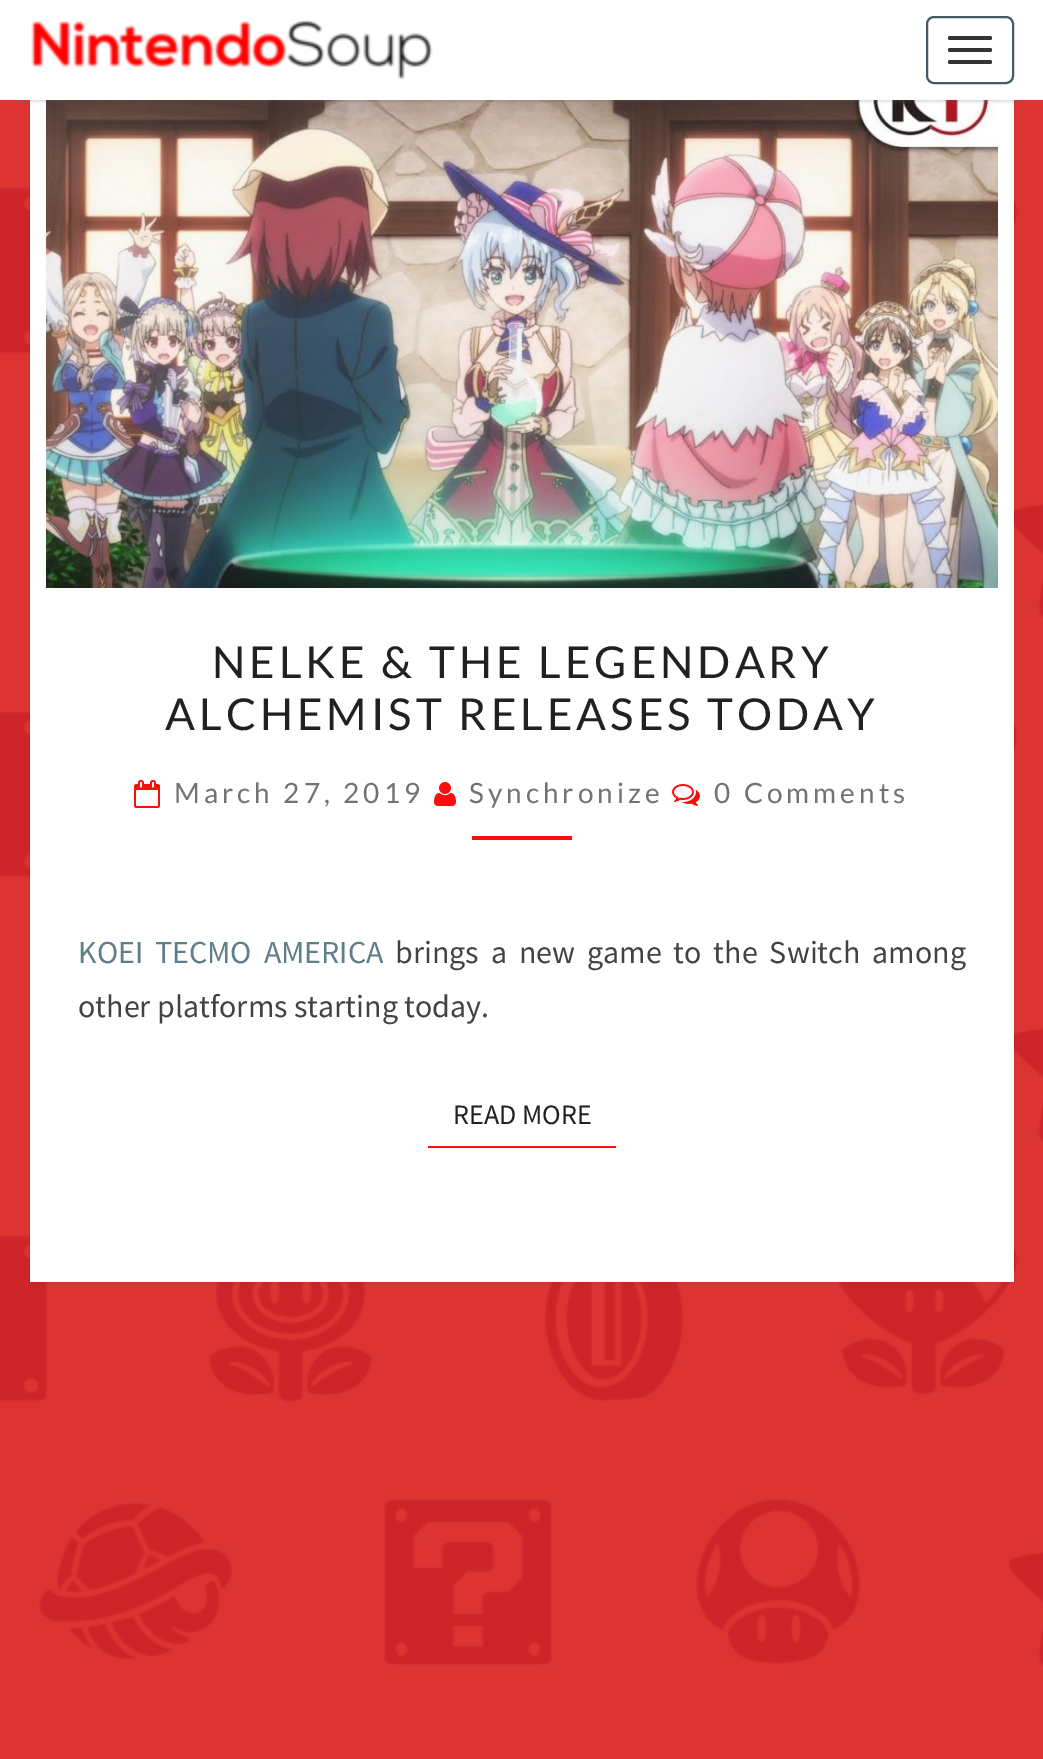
%!PS
<< /PageSize [1043 1759] /PageUsesTransparency true >> setpagedevice
/alpha { dup .setfillconstantalpha .setstrokeconstantalpha } def
/roundrect { 5 dict begin { /r /h /w /y /x } { exch def } forall
  x r add y moveto x w add y 2 copy h add r arct x w add y h add x 1 index r arct
  x y h add x y r arct x y 2 copy exch w add exch r arct closepath end } def
/shadow { 12 dict begin { /a /b /q /h /w /y /x } { exch def } forall gsave /was 0 def
  9 -2 -9 { dup b mul 4 div /e exch def 1 sub .425 mul 2.718 exch exp 1 add a .99 .min exch div /now exch def
    1 1 now sub 1 was sub div sub alpha /was now def
    w h .min e 2 mul add 0 gt { x e sub y e sub w e 2 mul add h e 2 mul add
      q e add b .6 mul add w h .min 2 div e add .min 0 .max roundrect fill } if } for grestore end } def
/picture { 5 dict begin { /h /w /y /x /name } { exch def } forall
  gsave x y translate w h scale
  w h 8 [w 0 0 h 0 0] name (r) file false 3 colorimage grestore end } def
0 .pushpdf14devicefilter
0 1759 translate 1 -1 scale
4 setmiterlimit
0.867 0.2 0.2 setrgbcolor
0 0 1043 1759 rectfill
(img1.rgb) 0 187 1043 1478 picture
0 setgray
30 44 984 1238 0 1 0.15 shadow
1 setgray
30 100 984 1182 rectfill
(img3.rgb) 46 100 952 488 picture
0.392 setgray
0 2 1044 100 0 1 0.2 shadow
1 setgray
0 0 1043 100 rectfill
(img2.rgb) 31 20 402 60 picture
0.271 0.353 0.392 setrgbcolor
2 setlinewidth
927 17 86 66 7 roundrect stroke
0.2 setgray
948 36 44 4 2 roundrect fill
948 48 44 4 2 roundrect fill
948 60 44 4 2 roundrect fill
/Lato-Regular [44 0 0 -44 0 0] selectfont
0.129 setgray
212 678 moveto 4 0 (NELKE & THE LEGENDARY) ashow
165 730 moveto 4 0 (ALCHEMIST RELEASES TODAY) ashow
(img4.rgb) 134 780 26 28 picture
/Lato-Regular [28 0 0 -28 0 0] selectfont
0.447 setgray
174 803 moveto 4 0 (March 27, 2019) ashow
(img5.rgb) 434 782 22 24 picture
469 803 moveto 4 0 (Synchronize) ashow
(img6.rgb) 672 784 28 22 picture
714 803 moveto 4 0 (0 Comments) ashow
1 0.047 0.047 setrgbcolor
472 836 100 4 rectfill
/SourceSansPro-Regular [32 0 0 -32 0 0] selectfont
0.376 0.49 0.545 setrgbcolor
78 963 moveto 5.5 0 32 (KOEI TECMO AMERICA) widthshow
0.259 setgray
395 963 moveto 5.5 0 32 (brings a new game to the Switch among) widthshow
78 1017 moveto (other platforms starting today.) show
1 0.047 0.047 setrgbcolor
428 1146 188 2 rectfill
/SourceSansPro-Regular [28 0 0 -28 0 0] selectfont
0.129 setgray
453 1124 moveto (READ MORE) show
.poppdf14devicefilter showpage
